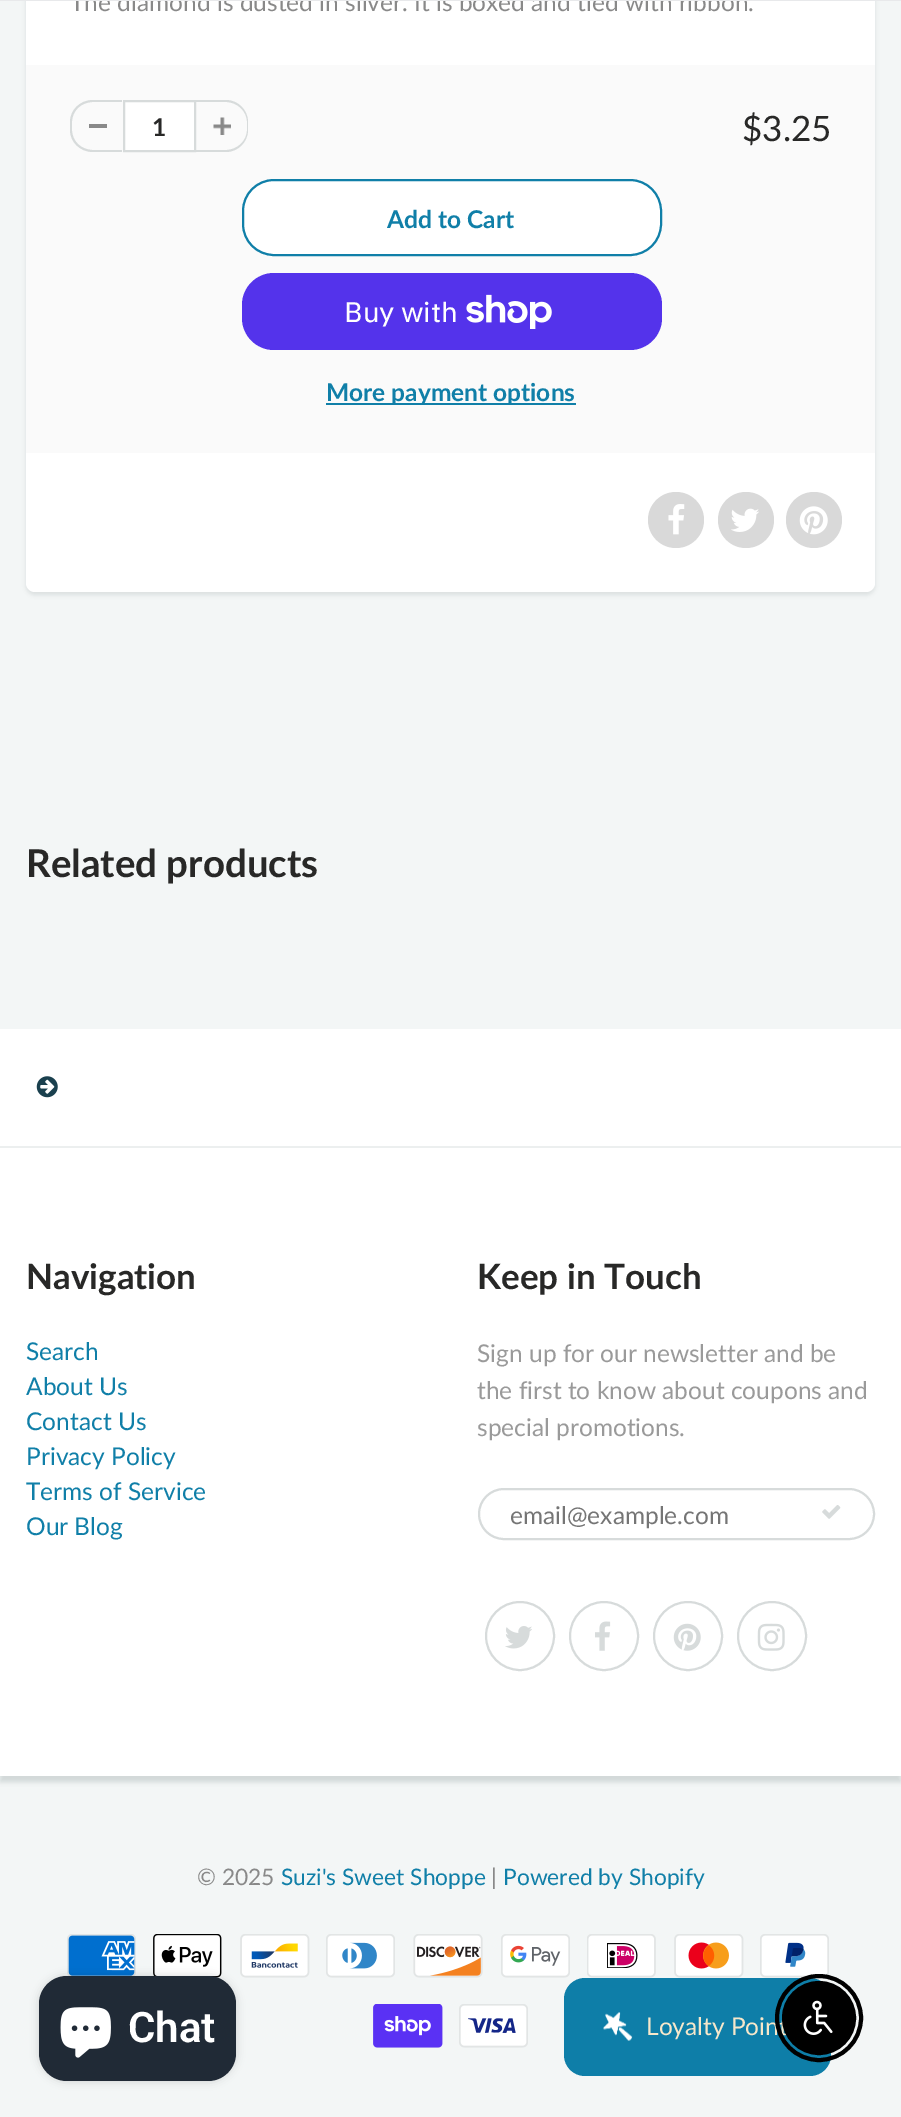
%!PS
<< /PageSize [901 2117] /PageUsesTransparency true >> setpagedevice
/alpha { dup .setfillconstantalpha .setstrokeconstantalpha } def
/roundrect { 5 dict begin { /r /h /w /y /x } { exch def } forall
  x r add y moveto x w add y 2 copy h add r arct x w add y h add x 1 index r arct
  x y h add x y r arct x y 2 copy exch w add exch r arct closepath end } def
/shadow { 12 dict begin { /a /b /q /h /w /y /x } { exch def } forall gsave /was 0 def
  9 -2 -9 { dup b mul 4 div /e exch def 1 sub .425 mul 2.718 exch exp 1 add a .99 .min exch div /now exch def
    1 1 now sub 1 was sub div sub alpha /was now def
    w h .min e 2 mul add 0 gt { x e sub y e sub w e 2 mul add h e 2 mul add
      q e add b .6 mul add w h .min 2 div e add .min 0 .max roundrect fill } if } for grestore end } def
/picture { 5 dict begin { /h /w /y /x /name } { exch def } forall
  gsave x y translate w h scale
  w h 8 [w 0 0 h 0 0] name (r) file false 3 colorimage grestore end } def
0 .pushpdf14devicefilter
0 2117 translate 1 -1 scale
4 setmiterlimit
1 setgray
0 0 901 2117 rectfill
0.953 0.965 0.965 setrgbcolor
0 1 901 1028 rectfill
0.043 0.098 0.11 setrgbcolor
26 -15 849 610 9 2 0.1 shadow
1 setgray
26 -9 849 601 9 roundrect fill
/Lato-Regular [24.5 0 0 -24.5 0 0] selectfont
0.537 setgray
70 11 moveto (The diamond is dusted in silver. It is boxed and tied with ribbon.) show
0.91 0.914 0.922 setrgbcolor
0 0 901 1 rectfill
0.98 setgray
26 65 849 388 rectfill
0.537 setgray
89 124 18 4 rectfill
0.843 0.859 0.859 setrgbcolor
newpath 93 100 moveto 122 100 lineto 122 152 lineto 93 152 lineto 80 152 70 142 70 130 curveto 70 122 lineto 70 110 80 100 93 100 curveto closepath 93 102 moveto 122 102 lineto 122 150 lineto 93 150 lineto 81 150 72 141 72 130 curveto 72 122 lineto 72 111 81 102 93 102 curveto closepath eofill
1 setgray
newpath 124 101 moveto 195 101 lineto 195 151 lineto 124 151 lineto closepath gsave fill grestore
0.843 0.859 0.859 setrgbcolor
2 setlinewidth
stroke
/Lato-Bold [24.5 0 0 -24.5 0 0] selectfont
0.157 0.157 0.153 setrgbcolor
152 136 moveto (1) show
(img1.rgb) 213 117 18 18 picture
0.843 0.859 0.859 setrgbcolor
newpath 196 100 moveto 226 100 lineto 238 100 248 110 248 122 curveto 248 130 lineto 248 142 238 152 226 152 curveto 196 152 lineto closepath 196 102 moveto 226 102 lineto 237 102 247 111 247 122 curveto 247 130 lineto 247 141 237 150 226 150 curveto 196 150 lineto closepath eofill
/Lato-Regular [35 0 0 -35 0 0] selectfont
0.157 0.157 0.153 setrgbcolor
742 141 moveto ($3.25) show
1 setgray
243 180 418 75 31 roundrect gsave fill grestore
0.063 0.498 0.659 setrgbcolor
stroke
/Lato-Bold [24.5 0 0 -24.5 0 0] selectfont
387 228 moveto (Add to Cart) show
0.329 0.2 0.922 setrgbcolor
242 273 420 77 32 roundrect fill
/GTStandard-Regular [28 0 0 -28 0 0] selectfont
1 setgray
344 322 moveto (Buy with) show
(img2.rgb) 466 294 86 35 picture
0.063 0.498 0.659 setrgbcolor
326 403 250 2 rectfill
/Lato-Bold [24.5 0 0 -24.5 0 0] selectfont
326 401 moveto (More payment options) show
0.851 setgray
newpath 676 520 28 0 360 arc closepath fill
(img3.rgb) 668 504 17 31 picture
newpath 746 520 28 0 360 arc closepath fill
(img4.rgb) 731 508 28 24 picture
newpath 814 520 28 0 360 arc closepath fill
(img5.rgb) 799 506 29 29 picture
/Lato-Bold [38.5 0 0 -38.5 0 0] selectfont
0.157 0.157 0.153 setrgbcolor
26 877 moveto (Related products) show
(img6.rgb) 36 1076 22 22 picture
0.953 0.965 0.965 setrgbcolor
0 1776 901 341 rectfill
gsave
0 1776 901 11 rectclip
0.82 0.843 0.843 setrgbcolor
0 1152 901 630 0 2.5 1 shadow
grestore
0.925 0.937 0.937 setrgbcolor
0 1146 901 2 rectfill
/Lato-Bold [35 0 0 -35 0 0] selectfont
0.157 0.157 0.153 setrgbcolor
26 1289 moveto (Navigation) show
/Lato-Regular [24.5 0 0 -24.5 0 0] selectfont
0.063 0.498 0.659 setrgbcolor
26 1360 moveto (Search) show
26 1395 moveto (About Us) show
26 1430 moveto (Contact Us) show
26 1465 moveto (Privacy Policy) show
26 1500 moveto (Terms of Service) show
26 1535 moveto (Our Blog) show
/Lato-Bold [35 0 0 -35 0 0] selectfont
0.157 0.157 0.153 setrgbcolor
477 1289 moveto (Keep in Touch) show
/Lato-Regular [24.5 0 0 -24.5 0 0] selectfont
0.604 setgray
477 1362 moveto (Sign up for our newsletter and be) show
477 1399 moveto (the first to know about coupons and) show
477 1436 moveto (special promotions.) show
0.843 0.859 0.859 setrgbcolor
479 1489 395 50 25 roundrect stroke
0.459 setgray
510 1524 moveto (email@example.com) show
(img7.rgb) 822 1505 19 14 picture
0.843 0.859 0.859 setrgbcolor
newpath 520 1636 34 0 360 arc closepath stroke
(img8.rgb) 505 1626 27 23 picture
newpath 604 1636 34 0 360 arc closepath stroke
(img9.rgb) 595 1621 16 30 picture
newpath 688 1636 34 0 360 arc closepath stroke
(img10.rgb) 673 1623 28 28 picture
newpath 772 1636 34 0 360 arc closepath stroke
(img11.rgb) 757 1623 28 28 picture
/Lato-Regular [22.75 0 0 -22.75 0 0] selectfont
0.537 setgray
197 1885 moveto (© 2025) show
0.063 0.498 0.659 setrgbcolor
281 1885 moveto (Suzi's Sweet Shoppe) show
0.537 setgray
491 1885 moveto (|) show
0.063 0.498 0.659 setrgbcolor
503 1885 moveto (Powered by Shopify) show
(img12.rgb) 67 1934 69 42 picture
(img13.rgb) 153 1934 69 44 picture
(img14.rgb) 240 1934 70 44 picture
(img15.rgb) 326 1934 69 44 picture
(img16.rgb) 413 1934 70 44 picture
(img17.rgb) 501 1934 69 44 picture
(img18.rgb) 587 1934 69 44 picture
(img19.rgb) 674 1934 70 44 picture
(img20.rgb) 760 1934 69 44 picture
(img21.rgb) 373 2004 70 44 picture
(img22.rgb) 459 2004 69 44 picture
0 setgray
39 1976 197 105 28 4.5 0.15 shadow
0.125 0.165 0.212 setrgbcolor
39 1976 197 105 28 roundrect fill
(img23.rgb) 60 2007 51 51 picture
/Roboto-SemiBold [42 0 0 -42 0 0] selectfont
1 setgray
128 2042 moveto (Chat) show
0.055 0.494 0.659 setrgbcolor
564 1978 267 98 21 roundrect fill
(img24.rgb) 603 2012 30 29 picture
/Lato-Regular [24.5 0 0 -24.5 0 0] selectfont
0.965 0.906 0.792 setrgbcolor
646 2035 moveto (Loyalty Point) show
0 setgray
4 setlinewidth
newpath 819 2018 42 0 360 arc closepath stroke
newpath 819 2018 36 0 360 arc closepath gsave fill grestore
2 setlinewidth
stroke
(img25.rgb) 803 2000 30 35 picture
.poppdf14devicefilter showpage
